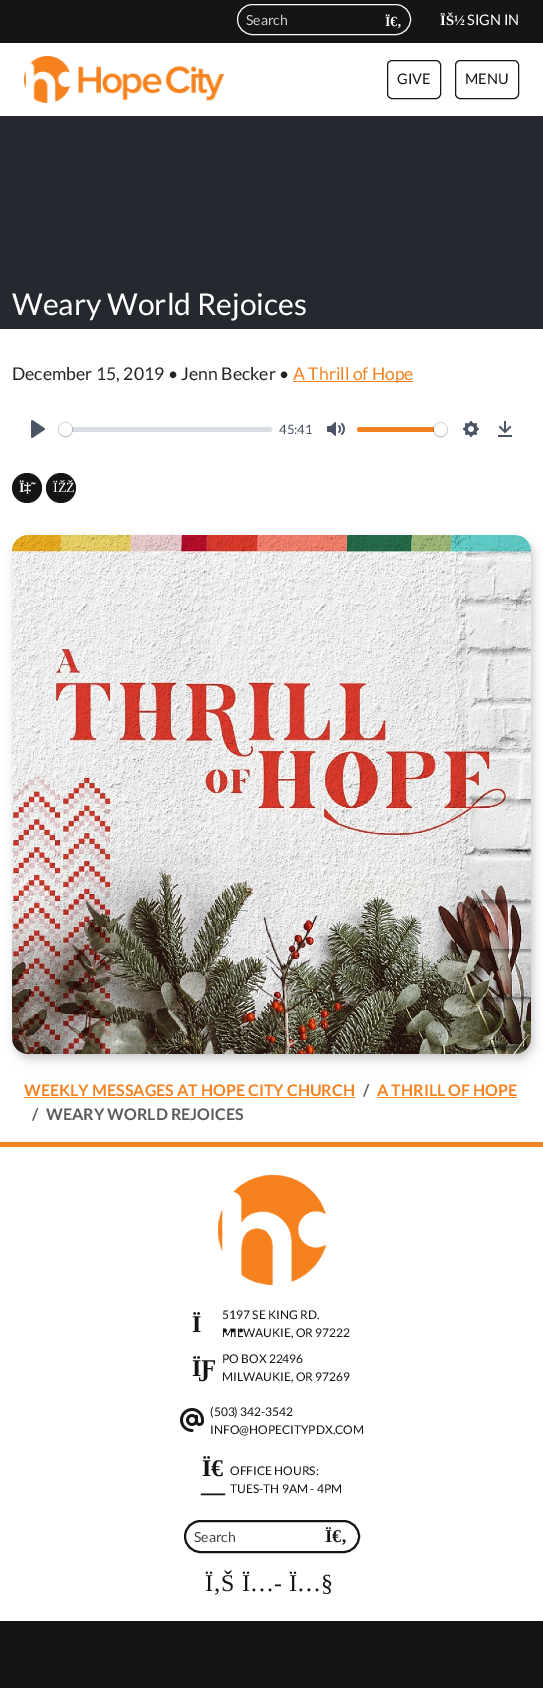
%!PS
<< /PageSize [543 1688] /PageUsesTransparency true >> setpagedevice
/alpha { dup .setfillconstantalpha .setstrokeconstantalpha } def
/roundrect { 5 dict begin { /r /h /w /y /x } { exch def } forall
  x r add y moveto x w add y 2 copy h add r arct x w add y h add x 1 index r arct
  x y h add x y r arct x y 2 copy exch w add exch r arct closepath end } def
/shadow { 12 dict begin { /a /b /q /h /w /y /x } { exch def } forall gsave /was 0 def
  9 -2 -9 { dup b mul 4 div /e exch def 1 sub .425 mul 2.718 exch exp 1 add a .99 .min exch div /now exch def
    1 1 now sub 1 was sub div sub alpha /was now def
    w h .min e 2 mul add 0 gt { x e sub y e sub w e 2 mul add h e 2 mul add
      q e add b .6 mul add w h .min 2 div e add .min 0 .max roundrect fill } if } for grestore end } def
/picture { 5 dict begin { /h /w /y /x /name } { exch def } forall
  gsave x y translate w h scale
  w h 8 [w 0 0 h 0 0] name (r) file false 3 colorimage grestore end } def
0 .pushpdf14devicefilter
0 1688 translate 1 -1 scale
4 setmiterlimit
1 setgray
0 0 543 1688 rectfill
0.082 0.082 0.086 setrgbcolor
0 0 543 43 rectfill
1 setgray
237.5 4.5 173 30 15 roundrect stroke
/Lato-Regular [14 0 0 -14 0 0] selectfont
0.8 setgray
246 25 moveto (Search) show
/LiberationSerif-Bold [14 0 0 -14 0 0] selectfont
1 setgray
385 26 moveto (Ï€‚) show
/LiberationSerif-Bold [14.5 0 0 -14.5 0 0] selectfont
440 25 moveto (ÏŠ½) show
/Lato-Regular [14.5 0 0 -14.5 0 0] selectfont
467 25 moveto (SIGN IN) show
(img1.rgb) 24 56 200 47 picture
0.082 0.082 0.086 setrgbcolor
387.5 60.5 53 38 4.5 roundrect stroke
397 84 moveto (GIVE) show
455.5 60.5 63 38 4.5 roundrect stroke
465 84 moveto (MENU) show
0.145 0.161 0.184 setrgbcolor
0 116 543 213 rectfill
/Lato-Regular [30.1 0 0 -30.1 0 0] selectfont
1 setgray
12 315 moveto (Weary World Rejoices) show
/Lato-Regular [17.6 0 0 -17.6 0 0] selectfont
0.129 0.145 0.161 setrgbcolor
12 380 moveto (December 15, 2019 • Jenn Becker •) show
0.961 0.51 0.125 setrgbcolor
293 381 120 1 rectfill
293 380 moveto (A Thrill of Hope) show
(img2.rgb) 31 420 14 18 picture
0.6 alpha
0.757 0.784 0.82 setrgbcolor
59 427 213 5 2.5 roundrect fill
0.2 alpha
0.137 0.157 0.184 setrgbcolor
newpath 65.5 429.5 7 0 360 arc closepath stroke
1 alpha
59 424 13 13 6.5 0.5 0.15 shadow
1 setgray
newpath 65.5 429.5 6.5 0 360 arc closepath fill
/Lato-Regular [13 0 0 -13 0 0] selectfont
0.29 0.329 0.392 setrgbcolor
279 434 moveto (45:41) show
(img3.rgb) 327 422 18 14 picture
0.961 0.51 0.125 setrgbcolor
357 427 90 5 2.5 roundrect fill
0.2 alpha
0.137 0.157 0.184 setrgbcolor
newpath 440.5 429.5 7 0 360 arc closepath stroke
1 alpha
434 424 13 13 6.5 0.5 0.15 shadow
1 setgray
newpath 440.5 429.5 6.5 0 360 arc closepath fill
(img4.rgb) 463 421 16 16 picture
(img5.rgb) 498 421 14 16 picture
0.082 0.082 0.086 setrgbcolor
newpath 27 488 15 0 360 arc closepath fill
/LiberationSerif-Bold [14 0 0 -14 0 0] selectfont
1 setgray
19 492 moveto (Ï‡˜) show
0.082 0.082 0.086 setrgbcolor
newpath 61 488 15 0 360 arc closepath fill
/LiberationSerif-Regular [14 0 0 -14 0 0] selectfont
1 setgray
53 492 moveto (ÏŽŽ) show
0.082 0.082 0.086 setrgbcolor
16 542 519 519 16 6 0.1 shadow
14 539 519 519 16 3 0.08 shadow
13 537 519 519 16 2 0.06 shadow
(img6.rgb) 12 535 519 519 picture
/Lato-Bold [16 0 0 -16 0 0] selectfont
0.961 0.51 0.125 setrgbcolor
24 1096 moveto (WEEKLY MESSAGES AT HOPE CITY CHURCH) show
24 1097 331 1 rectfill
0.349 0.361 0.373 setrgbcolor
363 1096 moveto (/) show
0.961 0.51 0.125 setrgbcolor
377 1096 moveto (A THRILL OF HOPE) show
377 1097 140 1 rectfill
0.349 0.361 0.373 setrgbcolor
32 1120 moveto (/) show
46 1120 moveto (WEARY WORLD REJOICES) show
0.961 0.51 0.125 setrgbcolor
0 1142 543 5 rectfill
(img7.rgb) 218 1175 108 110 picture
/LiberationSerif-Bold [24 0 0 -24 0 0] selectfont
0.082 0.082 0.086 setrgbcolor
192 1332 moveto (Ï) show
221 1332 moveto (…) show
/Lato-Regular [12 0 0 -12 0 0] selectfont
222 1319 moveto (5197 SE KING RD.) show
222 1337 moveto (MILWAUKIE, OR 97222) show
/LiberationSerif-Bold [24 0 0 -24 0 0] selectfont
192 1376 moveto (ÏƑ) show
/Lato-Regular [12 0 0 -12 0 0] selectfont
222 1363 moveto (PO BOX 22496) show
222 1381 moveto (MILWAUKIE, OR 97269) show
(img8.rgb) 180 1408 24 24 picture
210 1416 moveto (\(503\) 342-3542) show
210 1434 moveto (INFO@HOPECITYPDX.COM) show
/LiberationSerif-Bold [24 0 0 -24 0 0] selectfont
202 1476 moveto (Ï€) show
201 1500 moveto (—) show
/Lato-Regular [12 0 0 -12 0 0] selectfont
230 1475 moveto (OFFICE HOURS:) show
230 1493 moveto (TUES-TH 9AM - 4PM) show
2 setlinewidth
185 1521 174 31 15.5 roundrect stroke
/Lato-Regular [14 0 0 -14 0 0] selectfont
0.278 0.278 0.29 setrgbcolor
194 1542 moveto (Search) show
/LiberationSerif-Bold [18 0 0 -18 0 0] selectfont
0.082 0.082 0.086 setrgbcolor
325 1542 moveto (Ï€‚) show
/LiberationSerif-Regular [24 0 0 -24 0 0] selectfont
205 1591 moveto (Ï‚Š) show
242 1591 moveto (Ï…-) show
289 1591 moveto (Ï…§) show
0 1621 543 67 rectfill
.poppdf14devicefilter showpage
